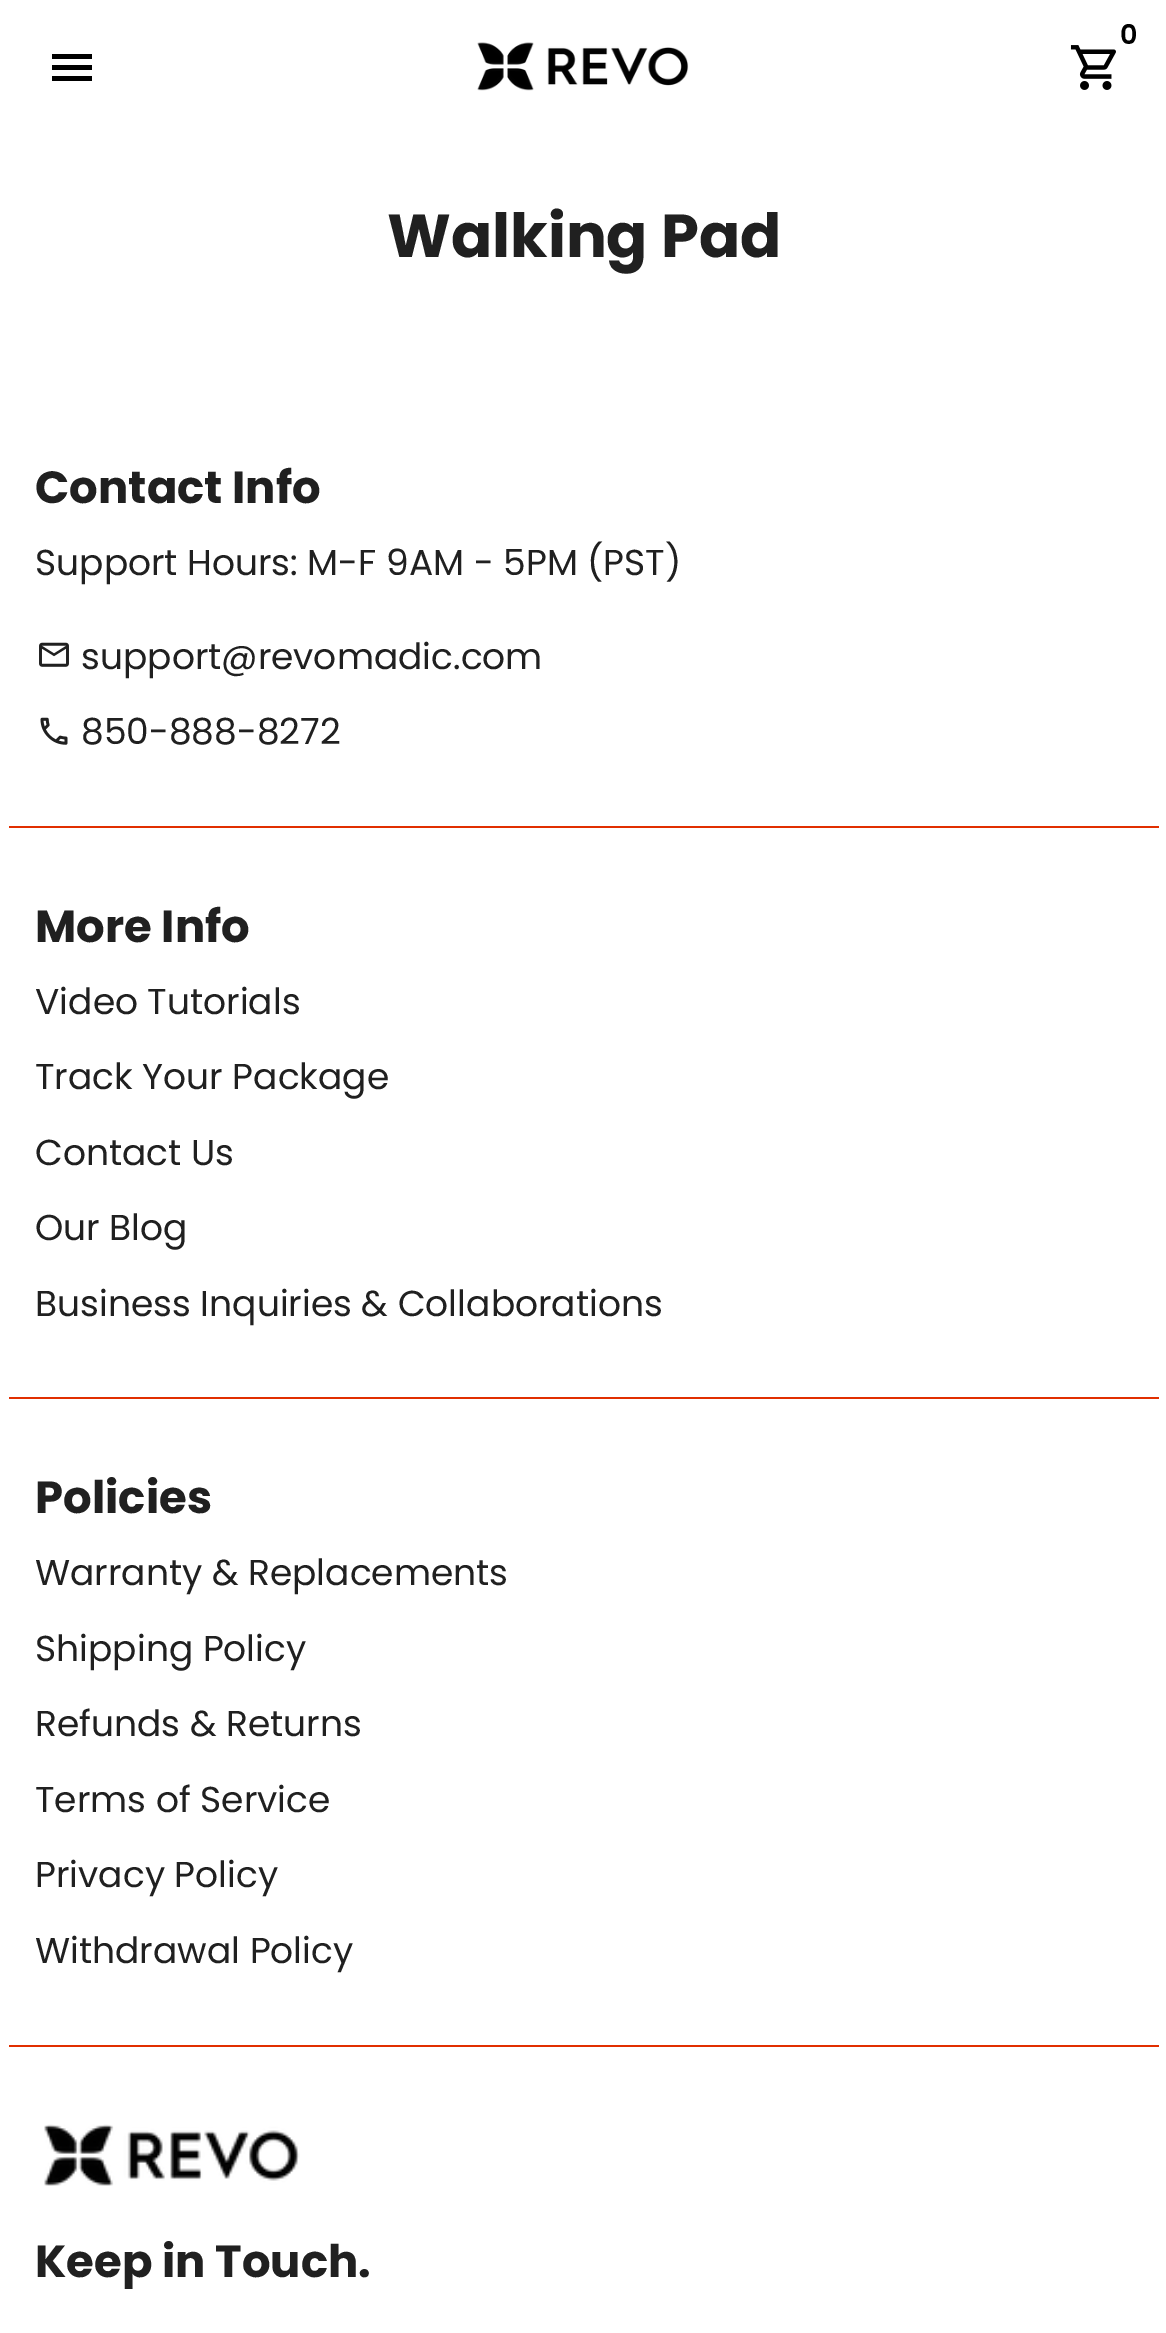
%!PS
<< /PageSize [1166 2333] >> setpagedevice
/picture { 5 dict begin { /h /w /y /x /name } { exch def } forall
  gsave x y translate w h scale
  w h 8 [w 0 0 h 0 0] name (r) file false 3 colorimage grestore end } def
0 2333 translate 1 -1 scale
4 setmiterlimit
1 setgray
0 0 1166 2333 rectfill
/Poppins-SemiBold [27 0 0 -27 0 0] selectfont
0 setgray
1120 44 moveto (0) show
(img1.rgb) 1070 45 46 45 picture
newpath 52 81 moveto 52 76 lineto 92 76 lineto 92 81 lineto closepath 52 70 moveto 52 65 lineto 92 65 lineto 92 70 lineto closepath 52 54 moveto 92 54 lineto 92 59 lineto 52 59 lineto closepath fill
(img2.rgb) 477 42 212 49 picture
/Poppins-Bold [60.75 0 0 -60.75 0 0] selectfont
0.125 setgray
387 257 moveto (Walking Pad) show
/Poppins-Bold [45 0 0 -45 0 0] selectfont
35 503 moveto (Contact Info) show
/Poppins-Regular [36 0 0 -36 0 0] selectfont
35 575 moveto (Support Hours: M-F 9AM - 5PM \(PST\)) show
(img3.rgb) 39 642 30 25 picture
81 669 moveto (support@revomadic.com) show
(img4.rgb) 40 717 28 28 picture
81 744 moveto (850-888-8272) show
0.882 0.184 0 setrgbcolor
9 826 1150 2 rectfill
/Poppins-Bold [45 0 0 -45 0 0] selectfont
0.125 setgray
35 942 moveto (More Info) show
/Poppins-Regular [36 0 0 -36 0 0] selectfont
35 1014 moveto (Video Tutorials) show
35 1089 moveto (Track Your Package) show
35 1165 moveto (Contact Us) show
35 1240 moveto (Our Blog) show
35 1316 moveto (Business Inquiries & Collaborations) show
0.882 0.184 0 setrgbcolor
9 1397 1150 2 rectfill
/Poppins-Bold [45 0 0 -45 0 0] selectfont
0.125 setgray
35 1513 moveto (Policies) show
/Poppins-Regular [36 0 0 -36 0 0] selectfont
35 1585 moveto (Warranty & Replacements) show
35 1661 moveto (Shipping Policy) show
35 1736 moveto (Refunds & Returns) show
35 1812 moveto (Terms of Service) show
35 1887 moveto (Privacy Policy) show
35 1963 moveto (Withdrawal Policy) show
0.882 0.184 0 setrgbcolor
9 2045 1150 2 rectfill
(img5.rgb) 44 2124 256 62 picture
/Poppins-Bold [45 0 0 -45 0 0] selectfont
0.125 setgray
35 2277 moveto (Keep in Touch.) show
showpage
